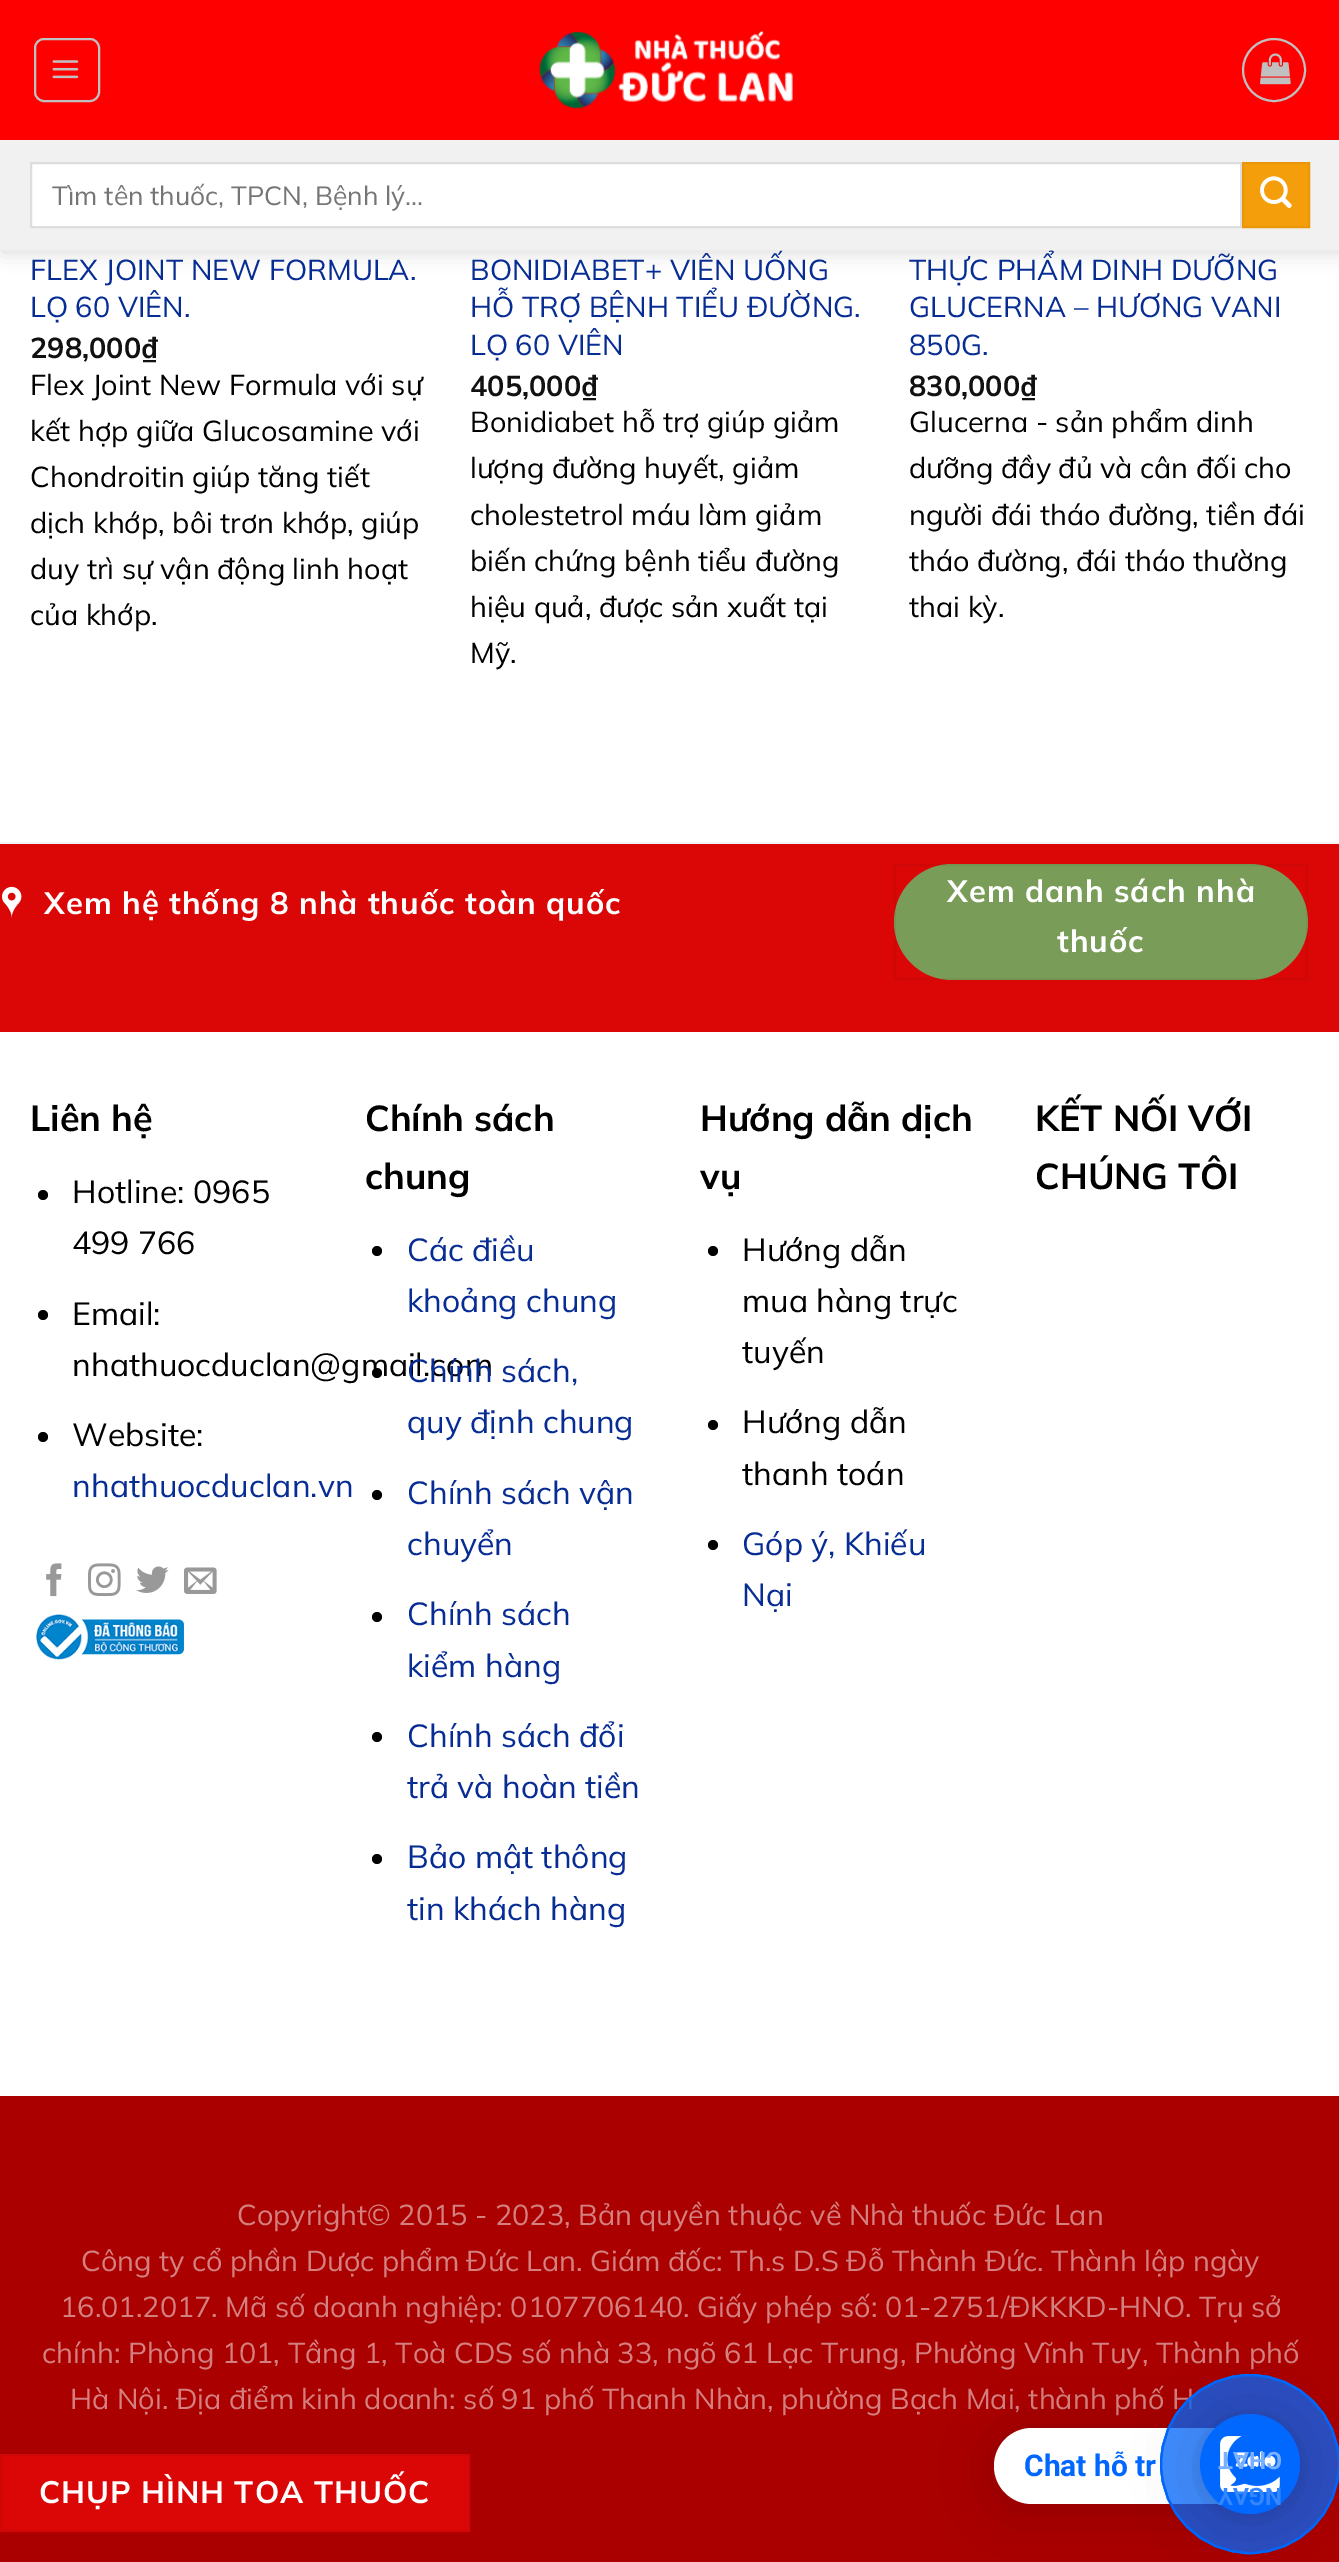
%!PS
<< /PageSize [1339 2562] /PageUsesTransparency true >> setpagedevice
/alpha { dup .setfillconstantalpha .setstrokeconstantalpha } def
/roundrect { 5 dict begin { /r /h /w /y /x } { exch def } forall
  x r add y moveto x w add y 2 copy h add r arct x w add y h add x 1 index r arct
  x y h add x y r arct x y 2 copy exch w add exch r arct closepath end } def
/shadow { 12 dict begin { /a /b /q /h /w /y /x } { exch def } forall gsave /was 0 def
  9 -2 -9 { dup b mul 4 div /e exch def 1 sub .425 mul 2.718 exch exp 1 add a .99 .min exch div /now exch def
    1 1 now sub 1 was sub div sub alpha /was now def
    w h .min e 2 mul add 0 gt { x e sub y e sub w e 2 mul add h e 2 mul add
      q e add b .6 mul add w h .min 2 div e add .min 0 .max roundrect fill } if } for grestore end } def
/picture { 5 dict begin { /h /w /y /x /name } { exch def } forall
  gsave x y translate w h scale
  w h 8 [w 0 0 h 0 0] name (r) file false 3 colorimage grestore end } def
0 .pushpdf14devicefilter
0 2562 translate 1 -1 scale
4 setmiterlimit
0.667 0 0 setrgbcolor
0 0 1339 2562 rectfill
1 setgray
0 250 1339 1846 rectfill
0 setgray
2 2 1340 250 0 10 0.15 shadow
1 0 0 setrgbcolor
0 0 1339 140 rectfill
0.753 setgray
2 setlinewidth
35 39 64 62 9 roundrect stroke
(img1.rgb) 52 60 27 19 picture
(img2.rgb) 539 31 254 78 picture
newpath 1274 70 31 0 360 arc closepath stroke
(img3.rgb) 1260 53 31 32 picture
0.945 setgray
0 140 1339 110 rectfill
1 setgray
newpath 31 163 moveto 1241 163 lineto 1241 227 lineto 31 227 lineto closepath gsave fill grestore
0.867 setgray
stroke
/Mulish-Regular [26.4 0 0 -26.4 0 0] selectfont
0.459 setgray
52 205 moveto (Tìm tên thuốc, TPCN, Bệnh lý...) show
0.961 0.62 0.043 setrgbcolor
newpath 1243 163 moveto 1309 163 lineto 1309 227 lineto 1243 227 lineto closepath gsave fill grestore
0.914 0.588 0.039 setrgbcolor
stroke
(img4.rgb) 1260 176 32 32 picture
/Mulish-Regular [28.8 0 0 -28.8 0 0] selectfont
0.027 0.176 0.58 setrgbcolor
30 280 moveto (FLEX JOINT NEW FORMULA.) show
30 317 moveto (LỌ 60 VIÊN.) show
/Mulish-Bold [28.8 0 0 -28.8 0 0] selectfont
0.067 setgray
30 358 moveto (298,000₫) show
/Mulish-Regular [28.8 0 0 -28.8 0 0] selectfont
0 setgray
30 395 moveto (Flex Joint New Formula với sự) show
30 441 moveto (kết hợp giữa Glucosamine với) show
30 487 moveto (Chondroitin giúp tăng tiết) show
30 533 moveto (dịch khớp, bôi trơn khớp, giúp) show
30 579 moveto (duy trì sự vận động linh hoạt) show
30 625 moveto (của khớp.) show
0.027 0.176 0.58 setrgbcolor
470 280 moveto (BONIDIABET+ VIÊN UỐNG) show
470 317 moveto (HỖ TRỢ BỆNH TIỂU ĐƯỜNG.) show
470 355 moveto (LỌ 60 VIÊN) show
/Mulish-Bold [28.8 0 0 -28.8 0 0] selectfont
0.067 setgray
470 396 moveto (405,000₫) show
/Mulish-Regular [28.8 0 0 -28.8 0 0] selectfont
0 setgray
470 432 moveto (Bonidiabet hỗ trợ giúp giảm) show
470 478 moveto (lượng đường huyết, giảm) show
470 525 moveto (cholestetrol máu làm giảm) show
470 571 moveto (biến chứng bệnh tiểu đường) show
470 617 moveto (hiệu quả, được sản xuất tại) show
470 663 moveto (Mỹ.) show
0.027 0.176 0.58 setrgbcolor
909 280 moveto (THỰC PHẨM DINH DƯỠNG) show
909 317 moveto (GLUCERNA – HƯƠNG VANI) show
909 355 moveto (850G.) show
/Mulish-Bold [28.8 0 0 -28.8 0 0] selectfont
0.067 setgray
909 396 moveto (830,000₫) show
/Mulish-Regular [28.8 0 0 -28.8 0 0] selectfont
0 setgray
909 432 moveto (Glucerna - sản phẩm dinh) show
909 478 moveto (dưỡng đầy đủ và cân đối cho) show
909 525 moveto (người đái tháo đường, tiền đái) show
909 571 moveto (tháo đường, đái tháo thường) show
909 617 moveto (thai kỳ.) show
0.949 setgray
0 842 1339 2 rectfill
0.859 0.027 0.027 setrgbcolor
0 844 1339 188 rectfill
(img5.rgb) 2 886 20 32 picture
/Mulish-Bold [31 0 0 -31 0 0] selectfont
1 setgray
44 914 moveto 0.95 0 (Xem hệ thống 8 nhà thuốc toàn quốc) ashow
0.478 0.612 0.349 setrgbcolor
894 864 414 116 58 roundrect fill
0.05 alpha
0 setgray
895 865 412 114 rectstroke
1 alpha
1 setgray
947 902 moveto 0.95 0 (Xem danh sách nhà) ashow
1057 952 moveto 0.95 0 (thuốc) ashow
/Mulish-Bold [36 0 0 -36 0 0] selectfont
0 setgray
30 1131 moveto (Liên hệ) show
newpath 43 1195 5 0 360 arc closepath fill
/Mulish-Regular [32 0 0 -32 0 0] selectfont
72 1203 moveto (Hotline: 0965) show
72 1254 moveto (499 766) show
newpath 43 1315 5 0 360 arc closepath fill
72 1325 moveto (Email:) show
72 1376 moveto (nhathuocduclan@gmail.com) show
newpath 43 1437 5 0 360 arc closepath fill
72 1446 moveto (Website:) show
0.027 0.176 0.58 setrgbcolor
72 1497 moveto (nhathuocduclan.vn) show
(img6.rgb) 46 1563 16 34 picture
(img7.rgb) 88 1563 33 34 picture
(img8.rgb) 136 1566 33 27 picture
(img9.rgb) 184 1567 33 27 picture
(img10.rgb) 36 1614 148 46 picture
/Mulish-Bold [36 0 0 -36 0 0] selectfont
0 setgray
365 1131 moveto (Chính sách) show
365 1189 moveto (chung) show
newpath 377 1251 5 0 360 arc closepath fill
/Mulish-Regular [32 0 0 -32 0 0] selectfont
0.027 0.176 0.58 setrgbcolor
407 1261 moveto (Các điều) show
407 1312 moveto (khoảng chung) show
0 setgray
newpath 377 1373 5 0 360 arc closepath fill
0.027 0.176 0.58 setrgbcolor
407 1382 moveto (Chính sách,) show
407 1433 moveto (quy định chung) show
0 setgray
newpath 377 1495 5 0 360 arc closepath fill
0.027 0.176 0.58 setrgbcolor
407 1504 moveto (Chính sách vận) show
407 1555 moveto (chuyển) show
0 setgray
newpath 377 1617 5 0 360 arc closepath fill
0.027 0.176 0.58 setrgbcolor
407 1625 moveto (Chính sách) show
407 1677 moveto (kiểm hàng) show
0 setgray
newpath 377 1737 5 0 360 arc closepath fill
0.027 0.176 0.58 setrgbcolor
407 1747 moveto (Chính sách đổi) show
407 1798 moveto (trả và hoàn tiền) show
0 setgray
newpath 377 1859 5 0 360 arc closepath fill
0.027 0.176 0.58 setrgbcolor
407 1868 moveto (Bảo mật thông) show
407 1920 moveto (tin khách hàng) show
/Mulish-Bold [36 0 0 -36 0 0] selectfont
0 setgray
700 1131 moveto (Hướng dẫn dịch) show
700 1189 moveto (vụ) show
newpath 713 1251 5 0 360 arc closepath fill
/Mulish-Regular [32 0 0 -32 0 0] selectfont
742 1261 moveto (Hướng dẫn) show
742 1312 moveto (mua hàng trực) show
742 1363 moveto (tuyến) show
newpath 713 1425 5 0 360 arc closepath fill
742 1433 moveto (Hướng dẫn) show
742 1485 moveto (thanh toán) show
newpath 713 1545 5 0 360 arc closepath fill
0.027 0.176 0.58 setrgbcolor
742 1555 moveto (Góp ý, Khiếu) show
742 1606 moveto (Nại) show
/Mulish-Bold [36 0 0 -36 0 0] selectfont
0 setgray
1035 1131 moveto (KẾT NỐI VỚI) show
1035 1189 moveto (CHÚNG TÔI) show
/Mulish-Regular [28.8 0 0 -28.8 0 0] selectfont
0.835 0.502 0.502 setrgbcolor
237 2225 moveto (Copyright© 2015 - 2023, Bản quyền thuộc về Nhà thuốc Đức Lan) show
81 2271 moveto (Công ty cổ phần Dược phẩm Đức Lan. Giám đốc: Th.s D.S Đỗ Thành Đức. Thành lập ngày) show
60 2317 moveto (16.01.2017. Mã số doanh nghiệp: 0107706140. Giấy phép số: 01-2751/ĐKKKD-HNO. Trụ sở) show
42 2363 moveto (chính: Phòng 101, Tầng 1, Toà CDS số nhà 33, ngõ 61 Lạc Trung, Phường Vĩnh Tuy, Thành phố) show
70 2409 moveto (Hà Nội. Địa điểm kinh doanh: số 91 phố Thanh Nhàn, phường Bạch Mai, thành phố H) show
0 setgray
994 2432 230 76 38 32 0.16 shadow
1 setgray
newpath 1032 2428 moveto 1224 2428 lineto 1224 2504 lineto 1032 2504 lineto 1011 2504 994 2487 994 2466 curveto 994 2445 1011 2428 1032 2428 curveto closepath fill
/Roboto-Bold [30 0 0 -30 0 0] selectfont
0 0.408 1 setrgbcolor
1024 2476 moveto (Chat hỗ tr) show
0.5 alpha
newpath 1250 2464 89 0 360 arc closepath fill
1 alpha
newpath 1250 2464 89 0 360 arc closepath stroke
0.5 alpha
newpath 1250 2464 89 0 360 arc closepath fill
1 alpha
newpath 1250 2464 89 0 360 arc closepath stroke
0 setgray
1200 2418 100 100 50 32 0.16 shadow
1200 2416 100 100 50 6 0.06 shadow
0 0.408 1 setrgbcolor
newpath 1250 2464 50 0 360 arc closepath fill
(img11.rgb) 1220 2436 60 56 picture
/Roboto-Bold [24 0 0 -24 0 0] selectfont
0.475 0.69 1 setrgbcolor
gsave 1282 2452 translate 180 rotate 0 0 moveto (CHAT) show grestore
0.212 0.529 0.996 setrgbcolor
gsave 1282 2488 translate 180 rotate 0 0 moveto (NGAY) show grestore
0.859 0.027 0.027 setrgbcolor
newpath 1 2455 moveto 469 2455 lineto 469 2531 lineto 1 2531 lineto closepath gsave fill grestore
0.816 0.027 0.027 setrgbcolor
stroke
/Mulish-Bold [31 0 0 -31 0 0] selectfont
1 setgray
39 2503 moveto 0.95 0 (CHỤP HÌNH TOA THUỐC) ashow
.poppdf14devicefilter showpage
